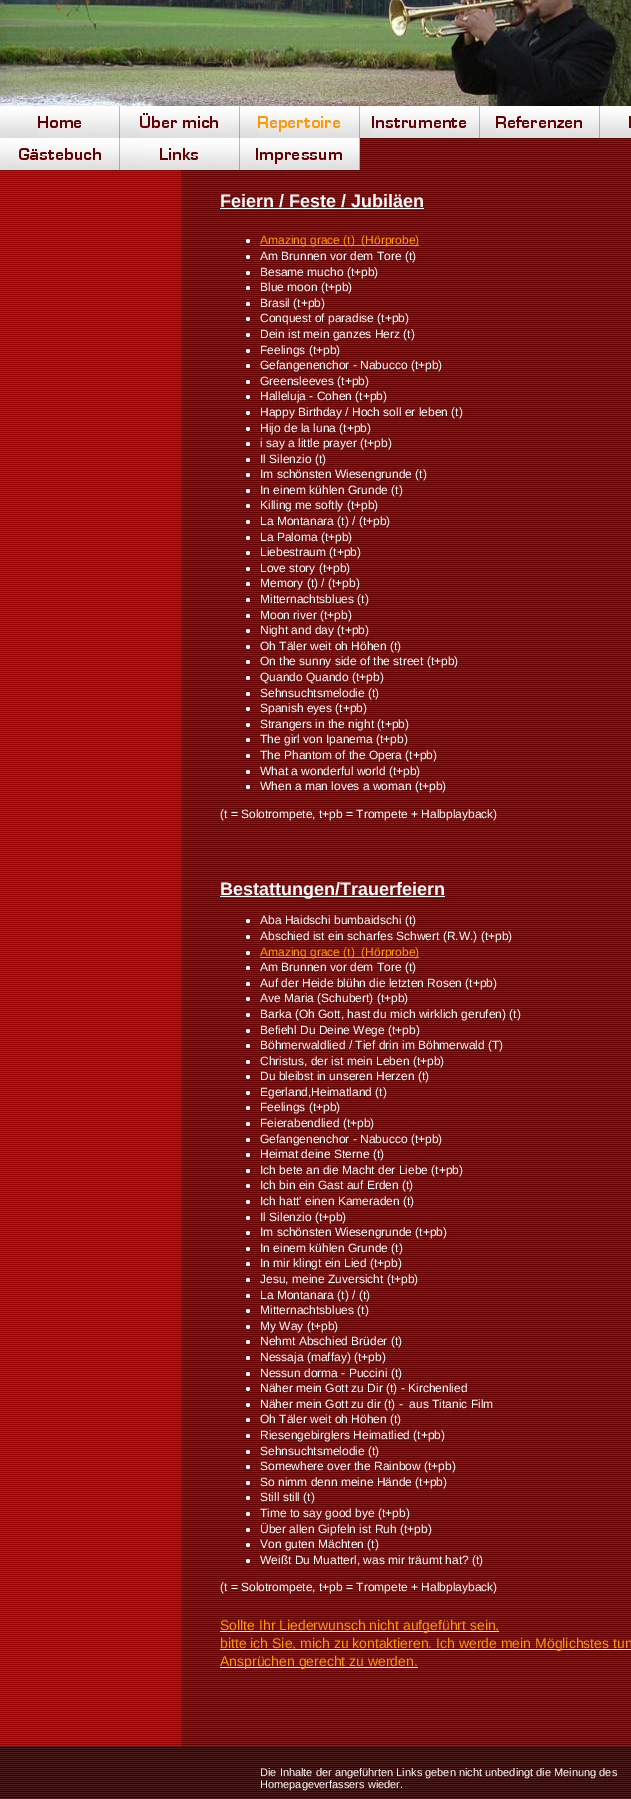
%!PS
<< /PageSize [631 1799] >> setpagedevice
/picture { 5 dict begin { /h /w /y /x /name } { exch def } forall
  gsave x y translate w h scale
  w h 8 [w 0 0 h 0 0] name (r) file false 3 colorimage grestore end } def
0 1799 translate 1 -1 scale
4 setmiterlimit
1 setgray
0 0 631 1799 rectfill
(img1.rgb) 0 138 631 1608 picture
(img2.rgb) 0 0 631 106 picture
(img3.rgb) 0 106 631 32 picture
(img4.rgb) 38 106 82 32 picture
(img5.rgb) 140 106 100 32 picture
(img6.rgb) 258 106 102 32 picture
(img7.rgb) 372 106 108 32 picture
(img8.rgb) 496 106 104 32 picture
0.4 0 0 setrgbcolor
629 116 2 12 rectfill
(img9.rgb) 0 138 120 32 picture
(img10.rgb) 120 138 120 32 picture
(img11.rgb) 240 138 120 32 picture
/LiberationSans-Bold [18 0 0 -18 0 0] selectfont
1 setgray
220 207 moveto (Feiern / Feste / Jubiläen) show
220 208 204 1 rectfill
newpath 248 241 2 0 360 arc closepath fill
1 0.6 0 setrgbcolor
260 245 159 1 rectfill
/LiberationSans-Regular [12 0 0 -12 0 0] selectfont
260 244 moveto (Amazing grace \(t\)  \(Hörprobe\)) show
1 setgray
newpath 248 257 2 0 360 arc closepath fill
260 260 moveto (Am Brunnen vor dem Tore \(t\)) show
newpath 248 273 2 0 360 arc closepath fill
260 276 moveto (Besame mucho \(t+pb\)) show
newpath 248 288 2 0 360 arc closepath fill
260 291 moveto (Blue moon \(t+pb\)) show
newpath 248 304 2 0 360 arc closepath fill
260 307 moveto (Brasil \(t+pb\)) show
newpath 248 319 2 0 360 arc closepath fill
260 322 moveto (Conquest of paradise \(t+pb\)) show
newpath 248 335 2 0 360 arc closepath fill
260 338 moveto (Dein ist mein ganzes Herz \(t\)) show
newpath 248 351 2 0 360 arc closepath fill
260 354 moveto (Feelings \(t+pb\)) show
newpath 248 366 2 0 360 arc closepath fill
260 369 moveto (Gefangenenchor - Nabucco \(t+pb\)) show
newpath 248 382 2 0 360 arc closepath fill
260 385 moveto (Greensleeves \(t+pb\)) show
newpath 248 397 2 0 360 arc closepath fill
260 400 moveto (Halleluja - Cohen \(t+pb\)) show
newpath 248 413 2 0 360 arc closepath fill
260 416 moveto (Happy Birthday / Hoch soll er leben \(t\)) show
newpath 248 429 2 0 360 arc closepath fill
260 432 moveto (Hijo de la luna \(t+pb\)) show
newpath 248 444 2 0 360 arc closepath fill
260 447 moveto (i say a little prayer \(t+pb\)) show
newpath 248 460 2 0 360 arc closepath fill
260 463 moveto (Il Silenzio \(t\)) show
newpath 248 475 2 0 360 arc closepath fill
260 478 moveto (Im schönsten Wiesengrunde \(t\)) show
newpath 248 491 2 0 360 arc closepath fill
260 494 moveto (In einem kühlen Grunde \(t\)) show
newpath 248 506 2 0 360 arc closepath fill
260 509 moveto (Killing me softly \(t+pb\)) show
newpath 248 522 2 0 360 arc closepath fill
260 525 moveto (La Montanara \(t\) / \(t+pb\)) show
newpath 248 538 2 0 360 arc closepath fill
260 541 moveto (La Paloma \(t+pb\)) show
newpath 248 553 2 0 360 arc closepath fill
260 556 moveto (Liebestraum \(t+pb\)) show
newpath 248 569 2 0 360 arc closepath fill
260 572 moveto (Love story \(t+pb\)) show
newpath 248 584 2 0 360 arc closepath fill
260 587 moveto (Memory \(t\) / \(t+pb\)) show
newpath 248 600 2 0 360 arc closepath fill
260 603 moveto (Mitternachtsblues \(t\)) show
newpath 248 616 2 0 360 arc closepath fill
260 619 moveto (Moon river \(t+pb\)) show
newpath 248 631 2 0 360 arc closepath fill
260 634 moveto (Night and day \(t+pb\)) show
newpath 248 647 2 0 360 arc closepath fill
260 650 moveto (Oh Täler weit oh Höhen \(t\)) show
newpath 248 662 2 0 360 arc closepath fill
260 665 moveto (On the sunny side of the street \(t+pb\)) show
newpath 248 678 2 0 360 arc closepath fill
260 681 moveto (Quando Quando \(t+pb\)) show
newpath 248 694 2 0 360 arc closepath fill
260 697 moveto (Sehnsuchtsmelodie \(t\)) show
newpath 248 709 2 0 360 arc closepath fill
260 712 moveto (Spanish eyes \(t+pb\)) show
newpath 248 725 2 0 360 arc closepath fill
260 728 moveto (Strangers in the night \(t+pb\)) show
newpath 248 740 2 0 360 arc closepath fill
260 743 moveto (The girl von Ipanema \(t+pb\)) show
newpath 248 756 2 0 360 arc closepath fill
260 759 moveto (The Phantom of the Opera \(t+pb\)) show
newpath 248 772 2 0 360 arc closepath fill
260 775 moveto (What a wonderful world \(t+pb\)) show
newpath 248 787 2 0 360 arc closepath fill
260 790 moveto (When a man loves a woman \(t+pb\)) show
220 818 moveto (\(t = Solotrompete, t+pb = Trompete + Halbplayback\)) show
220 896 225 1 rectfill
/LiberationSans-Bold [18 0 0 -18 0 0] selectfont
220 895 moveto (Bestattungen/Trauerfeiern) show
newpath 248 921 2 0 360 arc closepath fill
/LiberationSans-Regular [12 0 0 -12 0 0] selectfont
260 924 moveto (Aba Haidschi bumbaidschi \(t\)) show
newpath 248 937 2 0 360 arc closepath fill
260 940 moveto (Abschied ist ein scharfes Schwert \(R.W.\) \(t+pb\)) show
newpath 248 953 2 0 360 arc closepath fill
1 0.6 0 setrgbcolor
260 957 159 1 rectfill
260 956 moveto (Amazing grace \(t\)  \(Hörprobe\)) show
1 setgray
newpath 248 968 2 0 360 arc closepath fill
260 971 moveto (Am Brunnen vor dem Tore \(t\)) show
newpath 248 984 2 0 360 arc closepath fill
260 987 moveto (Auf der Heide blühn die letzten Rosen \(t+pb\)) show
newpath 248 999 2 0 360 arc closepath fill
260 1002 moveto (Ave Maria \(Schubert\) \(t+pb\)) show
newpath 248 1015 2 0 360 arc closepath fill
260 1018 moveto (Barka \(Oh Gott, hast du mich wirklich gerufen\) \(t\)) show
newpath 248 1031 2 0 360 arc closepath fill
260 1034 moveto (Befiehl Du Deine Wege \(t+pb\)) show
newpath 248 1046 2 0 360 arc closepath fill
260 1049 moveto (Böhmerwaldlied / Tief drin im Böhmerwald \(T\)) show
newpath 248 1062 2 0 360 arc closepath fill
260 1065 moveto (Christus, der ist mein Leben \(t+pb\)) show
newpath 248 1077 2 0 360 arc closepath fill
260 1080 moveto (Du bleibst in unseren Herzen \(t\)) show
newpath 248 1093 2 0 360 arc closepath fill
260 1096 moveto (Egerland,Heimatland \(t\)) show
newpath 248 1108 2 0 360 arc closepath fill
260 1111 moveto (Feelings \(t+pb\)) show
newpath 248 1124 2 0 360 arc closepath fill
260 1127 moveto (Feierabendlied \(t+pb\)) show
newpath 248 1140 2 0 360 arc closepath fill
260 1143 moveto (Gefangenenchor - Nabucco \(t+pb\)) show
newpath 248 1155 2 0 360 arc closepath fill
260 1158 moveto (Heimat deine Sterne \(t\)) show
newpath 248 1171 2 0 360 arc closepath fill
260 1174 moveto (Ich bete an die Macht der Liebe \(t+pb\)) show
newpath 248 1186 2 0 360 arc closepath fill
260 1189 moveto (Ich bin ein Gast auf Erden \(t\)) show
newpath 248 1202 2 0 360 arc closepath fill
260 1205 moveto (Ich hatt' einen Kameraden \(t\)) show
newpath 248 1218 2 0 360 arc closepath fill
260 1221 moveto (Il Silenzio \(t+pb\)) show
newpath 248 1233 2 0 360 arc closepath fill
260 1236 moveto (Im schönsten Wiesengrunde \(t+pb\)) show
newpath 248 1249 2 0 360 arc closepath fill
260 1252 moveto (In einem kühlen Grunde \(t\)) show
newpath 248 1264 2 0 360 arc closepath fill
260 1267 moveto (In mir klingt ein Lied \(t+pb\)) show
newpath 248 1280 2 0 360 arc closepath fill
260 1283 moveto (Jesu, meine Zuversicht \(t+pb\)) show
newpath 248 1296 2 0 360 arc closepath fill
260 1299 moveto (La Montanara \(t\) / \(t\)) show
newpath 248 1311 2 0 360 arc closepath fill
260 1314 moveto (Mitternachtsblues \(t\)) show
newpath 248 1327 2 0 360 arc closepath fill
260 1330 moveto (My Way \(t+pb\)) show
newpath 248 1342 2 0 360 arc closepath fill
260 1345 moveto (Nehmt Abschied Brüder \(t\)) show
newpath 248 1358 2 0 360 arc closepath fill
260 1361 moveto (Nessaja \(maffay\) \(t+pb\)) show
newpath 248 1374 2 0 360 arc closepath fill
260 1377 moveto (Nessun dorma - Puccini \(t\)) show
newpath 248 1389 2 0 360 arc closepath fill
260 1392 moveto (Näher mein Gott zu Dir \(t\) - Kirchenlied) show
newpath 248 1405 2 0 360 arc closepath fill
260 1408 moveto (Näher mein Gott zu dir \(t\) -  aus Titanic Film) show
newpath 248 1420 2 0 360 arc closepath fill
260 1423 moveto (Oh Täler weit oh Höhen \(t\)) show
newpath 248 1436 2 0 360 arc closepath fill
260 1439 moveto (Riesengebirglers Heimatlied \(t+pb\)) show
newpath 248 1452 2 0 360 arc closepath fill
260 1455 moveto (Sehnsuchtsmelodie \(t\)) show
newpath 248 1467 2 0 360 arc closepath fill
260 1470 moveto (Somewhere over the Rainbow \(t+pb\)) show
newpath 248 1483 2 0 360 arc closepath fill
260 1486 moveto (So nimm denn meine Hände \(t+pb\)) show
newpath 248 1498 2 0 360 arc closepath fill
260 1501 moveto (Still still \(t\)) show
newpath 248 1514 2 0 360 arc closepath fill
260 1517 moveto (Time to say good bye \(t+pb\)) show
newpath 248 1530 2 0 360 arc closepath fill
260 1533 moveto (Über allen Gipfeln ist Ruh \(t+pb\)) show
newpath 248 1545 2 0 360 arc closepath fill
260 1548 moveto (Von guten Mächten \(t\)) show
newpath 248 1561 2 0 360 arc closepath fill
260 1564 moveto (Weißt Du Muatterl, was mir träumt hat? \(t\)) show
220 1591 moveto (\(t = Solotrompete, t+pb = Trompete + Halbplayback\)) show
220 1631 279 1 rectfill
/LiberationSans-Regular [14 0 0 -14 0 0] selectfont
1 0.6 0 setrgbcolor
220 1630 moveto (Sollte Ihr Liederwunsch nicht aufgeführt sein,) show
1 setgray
220 1649 411 1 rectfill
1 0.6 0 setrgbcolor
220 1648 moveto (bitte ich Sie, mich zu kontaktieren. Ich werde mein Möglichstes tun) show
1 setgray
220 1667 198 1 rectfill
1 0.6 0 setrgbcolor
220 1666 moveto (Ansprüchen gerecht zu werden.) show
(img12.rgb) 0 1746 631 53 picture
/LiberationSans-Regular [11 0 0 -11 0 0] selectfont
1 setgray
260 1776 moveto (Die Inhalte der angeführten Links geben nicht unbedingt die Meinung des) show
260 1788 moveto (Homepageverfassers wieder.) show
showpage
